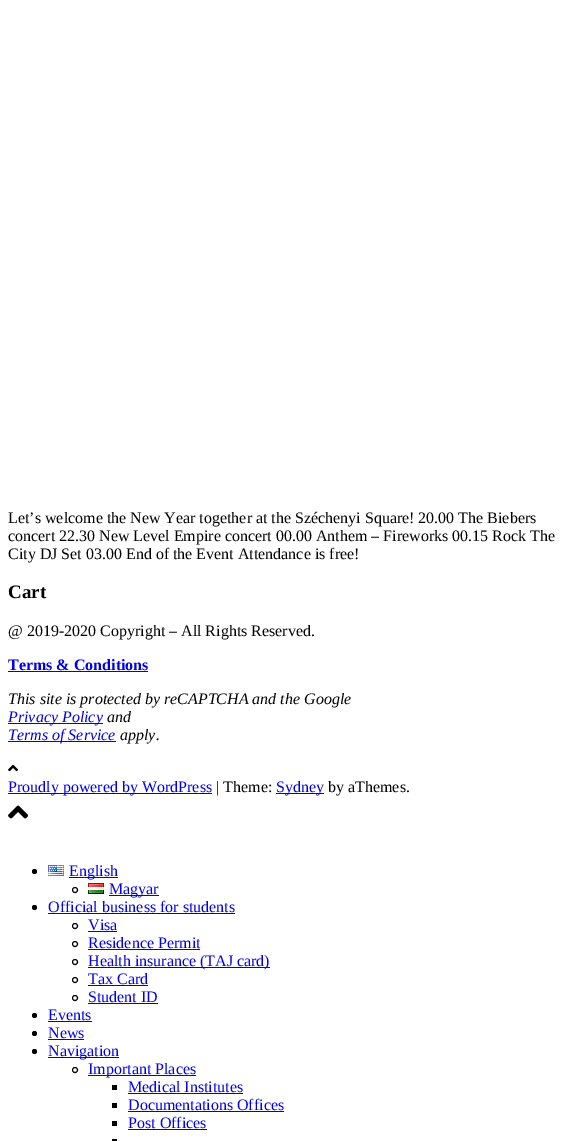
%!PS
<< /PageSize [564 1141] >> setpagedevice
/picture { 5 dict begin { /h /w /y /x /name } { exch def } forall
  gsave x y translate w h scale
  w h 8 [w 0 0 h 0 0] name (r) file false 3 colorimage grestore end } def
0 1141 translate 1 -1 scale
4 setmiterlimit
1 setgray
0 0 564 1141 rectfill
/LiberationSerif-Regular [16 0 0 -16 0 0] selectfont
0 setgray
8 523 moveto (Let’s welcome the New Year together at the Széchenyi Square! 20.00 The Biebers) show
8 541 moveto (concert 22.30 New Level Empire concert 00.00 Anthem – Fireworks 00.15 Rock The) show
8 559 moveto (City DJ Set 03.00 End of the Event Attendance is free!) show
/LiberationSerif-Bold [19 0 0 -19 0 0] selectfont
8 598 moveto (Cart) show
/LiberationSerif-Regular [16 0 0 -16 0 0] selectfont
8 636 moveto (@ 2019-2020 Copyright – All Rights Reserved.) show
/LiberationSerif-Bold [16 0 0 -16 0 0] selectfont
0 0 0.933 setrgbcolor
8 670 moveto (Terms & Conditions) show
8 671 140 1 rectfill
/LiberationSerif-Italic [16 0 0 -16 0 0] selectfont
0 setgray
8 704 moveto (This site is protected by reCAPTCHA and the Google) show
0 0 0.933 setrgbcolor
8 723 95 1 rectfill
8 722 moveto (Privacy Policy) show
0 setgray
107 722 moveto (and) show
0 0 0.933 setrgbcolor
8 741 108 1 rectfill
8 740 moveto (Terms of Service) show
0 setgray
120 740 moveto (apply.) show
(img1.rgb) 8 764 10 8 picture
0 0 0.933 setrgbcolor
8 793 204 1 rectfill
/LiberationSerif-Regular [16 0 0 -16 0 0] selectfont
8 792 moveto (Proudly powered by WordPress) show
0 setgray
216 792 moveto (| Theme:) show
0 0 0.933 setrgbcolor
276 793 48 1 rectfill
276 792 moveto (Sydney) show
0 setgray
328 792 moveto (by aThemes.) show
(img2.rgb) 8 805 20 14 picture
newpath 34.5 871.5 2.5 0 360 arc closepath fill
(img3.rgb) 48 865 16 11 picture
0 0 0.933 setrgbcolor
69 877 49 1 rectfill
69 876 moveto (English) show
0 setgray
newpath 75 890 2.5 0 360 arc closepath stroke
(img4.rgb) 88 883 16 11 picture
0 0 0.933 setrgbcolor
109 895 50 1 rectfill
109 894 moveto (Magyar) show
0 setgray
newpath 34.5 907.5 2.5 0 360 arc closepath fill
0 0 0.933 setrgbcolor
48 912 moveto (Official business for students) show
48 913 187 1 rectfill
0 setgray
newpath 75 926 2.5 0 360 arc closepath stroke
0 0 0.933 setrgbcolor
88 930 moveto (Visa) show
88 931 29 1 rectfill
0 setgray
newpath 75 944 2.5 0 360 arc closepath stroke
0 0 0.933 setrgbcolor
88 948 moveto (Residence Permit) show
88 949 112 1 rectfill
0 setgray
newpath 75 962 2.5 0 360 arc closepath stroke
0 0 0.933 setrgbcolor
88 967 182 1 rectfill
88 966 moveto (Health insurance \(TAJ card\)) show
0 setgray
newpath 75 980 2.5 0 360 arc closepath stroke
0 0 0.933 setrgbcolor
88 984 moveto (Tax Card) show
88 985 60 1 rectfill
0 setgray
newpath 75 998 2.5 0 360 arc closepath stroke
0 0 0.933 setrgbcolor
88 1002 moveto (Student ID) show
88 1003 70 1 rectfill
0 setgray
newpath 34.5 1015.5 2.5 0 360 arc closepath fill
0 0 0.933 setrgbcolor
48 1020 moveto (Events) show
48 1021 44 1 rectfill
0 setgray
newpath 34.5 1033.5 2.5 0 360 arc closepath fill
0 0 0.933 setrgbcolor
48 1038 moveto (News) show
48 1039 36 1 rectfill
0 setgray
newpath 34.5 1051.5 2.5 0 360 arc closepath fill
0 0 0.933 setrgbcolor
48 1057 71 1 rectfill
48 1056 moveto (Navigation) show
0 setgray
newpath 75 1070 2.5 0 360 arc closepath stroke
0 0 0.933 setrgbcolor
88 1075 108 1 rectfill
88 1074 moveto (Important Places) show
0 setgray
112 1085 5 5 rectfill
0 0 0.933 setrgbcolor
128 1092 moveto (Medical Institutes) show
128 1093 115 1 rectfill
0 setgray
112 1103 5 5 rectfill
0 0 0.933 setrgbcolor
128 1110 moveto (Documentations Offices) show
128 1111 156 1 rectfill
0 setgray
112 1121 5 5 rectfill
0 0 0.933 setrgbcolor
128 1128 moveto (Post Offices) show
128 1129 79 1 rectfill
0 setgray
112 1139 5 2 rectfill
showpage
